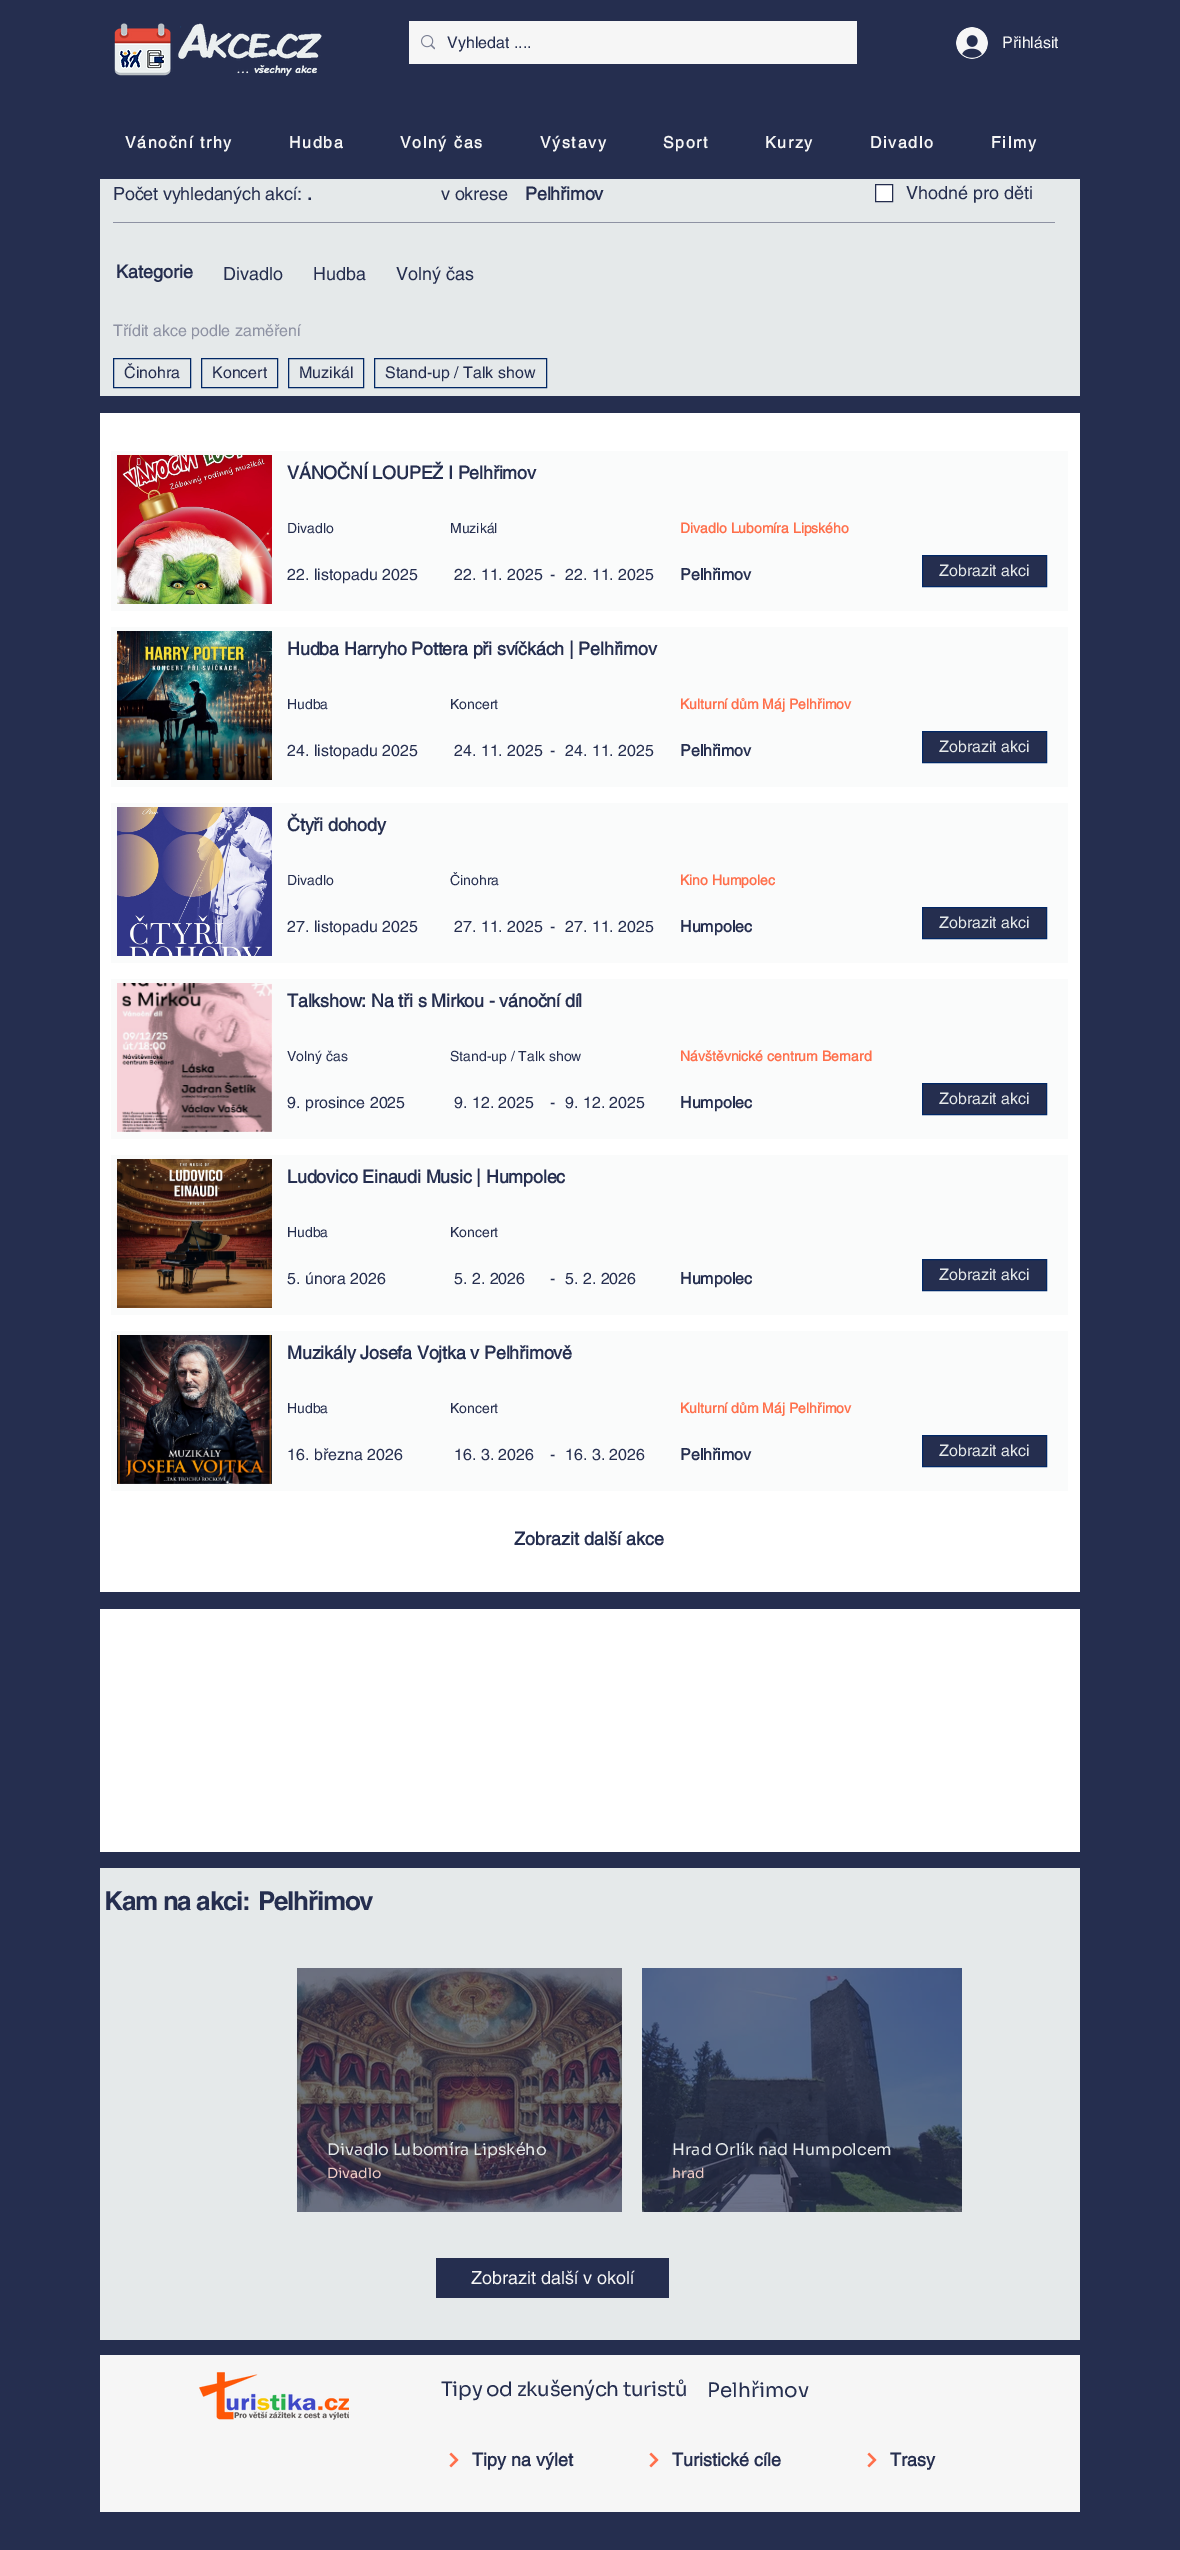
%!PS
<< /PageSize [1180 2550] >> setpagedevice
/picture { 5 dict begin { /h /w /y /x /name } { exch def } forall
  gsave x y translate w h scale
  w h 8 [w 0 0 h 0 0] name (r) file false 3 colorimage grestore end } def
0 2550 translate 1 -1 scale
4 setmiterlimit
0.145 0.18 0.31 setrgbcolor
0 0 1180 2550 rectfill
(img1.rgb) 114 23 208 53 picture
0.965 setgray
409 21 448 43 rectfill
(img2.rgb) 421 35 14 15 picture
/helvetica-Regular [16 0 0 -16 0 0] selectfont
0.145 0.18 0.31 setrgbcolor
447 48 moveto (Vyhledat ....) show
(img3.rgb) 956 27 32 32 picture
0.965 setgray
1002 48 moveto (Přihlásit) show
/helvetica-Bold [16 0 0 -16 0 0] selectfont
125 148 moveto 1.6 0 (Vánoční trhy) ashow
289 148 moveto 1.6 0 (Hudba) ashow
400 148 moveto 1.6 0 (Volný čas) ashow
540 148 moveto 1.6 0 (Výstavy) ashow
663 148 moveto 1.6 0 (Sport) ashow
765 148 moveto 1.6 0 (Kurzy) ashow
870 148 moveto 1.6 0 (Divadlo) ashow
991 148 moveto 1.6 0 (Filmy) ashow
0.898 0.914 0.918 setrgbcolor
100 179 980 217 rectfill
/helvetica-Regular [18 0 0 -18 0 0] selectfont
0.145 0.18 0.31 setrgbcolor
113 200 moveto -0.2 0 (Počet vyhledaných akcí:) ashow
/helvetica-Bold [18 0 0 -18 0 0] selectfont
307 200 moveto -0.2 0 (.) ashow
/helvetica-Regular [18 0 0 -18 0 0] selectfont
441 200 moveto -0.2 0 (v okrese) ashow
/helvetica-Bold [18 0 0 -18 0 0] selectfont
525 200 moveto -0.2 0 (Pelhřimov) ashow
1 setgray
newpath 875.5 184.5 moveto 892.5 184.5 lineto 892.5 201.5 lineto 875.5 201.5 lineto closepath gsave fill grestore
0.145 0.18 0.31 setrgbcolor
stroke
/helvetica-Regular [18 0 0 -18 0 0] selectfont
906 199 moveto (Vhodné pro děti) show
0.557 0.573 0.639 setrgbcolor
113 222 942 1 rectfill
/helvetica-Bold [18 0 0 -18 0 0] selectfont
0.145 0.18 0.31 setrgbcolor
116 278 moveto (Kategorie) show
/helvetica-Regular [18 0 0 -18 0 0] selectfont
223 280 moveto (Divadlo) show
313 280 moveto (Hudba) show
396 280 moveto (Volný čas) show
/helvetica-Regular [16 0 0 -16 0 0] selectfont
0.557 0.573 0.639 setrgbcolor
113 336 moveto (Třídit akce podle zaměření) show
0.004 0.153 0.396 setrgbcolor
113.5 358.5 77 29 rectstroke
0.145 0.18 0.31 setrgbcolor
124 378 moveto (Činohra) show
0.004 0.153 0.396 setrgbcolor
201.5 358.5 76 29 rectstroke
0.145 0.18 0.31 setrgbcolor
212 378 moveto (Koncert) show
0.004 0.153 0.396 setrgbcolor
288.5 358.5 75 29 rectstroke
0.145 0.18 0.31 setrgbcolor
299 378 moveto (Muzikál) show
0.004 0.153 0.396 setrgbcolor
374.5 358.5 172 29 rectstroke
0.145 0.18 0.31 setrgbcolor
385 378 moveto (Stand-up / Talk show) show
1 setgray
100 413 980 1179 rectfill
0.98 0.984 0.984 setrgbcolor
111 451 957 160 rectfill
(img4.rgb) 117 455 155 149 picture
/helvetica-Bold [18 0 0 -18 0 0] selectfont
0.145 0.18 0.31 setrgbcolor
287 479 moveto -0.2 0 (VÁNOČNÍ LOUPEŽ I Pelhřimov) ashow
/helvetica-Regular [14 0 0 -14 0 0] selectfont
287 533 moveto (Divadlo) show
450 533 moveto (Muzikál) show
/helvetica-Bold [14 0 0 -14 0 0] selectfont
1 0.435 0.294 setrgbcolor
680 533 moveto (Divadlo Lubomíra Lipského) show
/helvetica-Regular [16 0 0 -16 0 0] selectfont
0.145 0.18 0.31 setrgbcolor
287 580 moveto (22. listopadu 2025) show
454 580 moveto (22. 11. 2025) show
550 580 moveto (-) show
565 580 moveto (22. 11. 2025) show
/helvetica-Bold [16 0 0 -16 0 0] selectfont
680 580 moveto (Pelhřimov) show
newpath 922.5 555.5 moveto 1046.5 555.5 lineto 1046.5 586.5 lineto 922.5 586.5 lineto closepath gsave fill grestore
0.004 0.153 0.396 setrgbcolor
stroke
/helvetica-Regular [16 0 0 -16 0 0] selectfont
0.898 0.914 0.918 setrgbcolor
939 576 moveto (Zobrazit akci) show
0.98 0.984 0.984 setrgbcolor
111 627 957 160 rectfill
(img5.rgb) 117 631 155 149 picture
/helvetica-Bold [18 0 0 -18 0 0] selectfont
0.145 0.18 0.31 setrgbcolor
287 655 moveto -0.2 0 (Hudba Harryho Pottera při svíčkách | Pelhřimov) ashow
/helvetica-Regular [14 0 0 -14 0 0] selectfont
287 709 moveto (Hudba) show
450 709 moveto (Koncert) show
/helvetica-Bold [14 0 0 -14 0 0] selectfont
1 0.435 0.294 setrgbcolor
680 709 moveto (Kulturní dům Máj Pelhřimov) show
/helvetica-Regular [16 0 0 -16 0 0] selectfont
0.145 0.18 0.31 setrgbcolor
287 756 moveto (24. listopadu 2025) show
454 756 moveto (24. 11. 2025) show
550 756 moveto (-) show
565 756 moveto (24. 11. 2025) show
/helvetica-Bold [16 0 0 -16 0 0] selectfont
680 756 moveto (Pelhřimov) show
newpath 922.5 731.5 moveto 1046.5 731.5 lineto 1046.5 762.5 lineto 922.5 762.5 lineto closepath gsave fill grestore
0.004 0.153 0.396 setrgbcolor
stroke
/helvetica-Regular [16 0 0 -16 0 0] selectfont
0.898 0.914 0.918 setrgbcolor
939 752 moveto (Zobrazit akci) show
0.98 0.984 0.984 setrgbcolor
111 803 957 160 rectfill
(img6.rgb) 117 807 155 149 picture
/helvetica-Bold [18 0 0 -18 0 0] selectfont
0.145 0.18 0.31 setrgbcolor
287 831 moveto -0.2 0 (Čtyři dohody) ashow
/helvetica-Regular [14 0 0 -14 0 0] selectfont
287 885 moveto (Divadlo) show
450 885 moveto (Činohra) show
/helvetica-Bold [14 0 0 -14 0 0] selectfont
1 0.435 0.294 setrgbcolor
680 885 moveto (Kino Humpolec) show
/helvetica-Regular [16 0 0 -16 0 0] selectfont
0.145 0.18 0.31 setrgbcolor
287 932 moveto (27. listopadu 2025) show
454 932 moveto (27. 11. 2025) show
550 932 moveto (-) show
565 932 moveto (27. 11. 2025) show
/helvetica-Bold [16 0 0 -16 0 0] selectfont
680 932 moveto (Humpolec) show
newpath 922.5 907.5 moveto 1046.5 907.5 lineto 1046.5 938.5 lineto 922.5 938.5 lineto closepath gsave fill grestore
0.004 0.153 0.396 setrgbcolor
stroke
/helvetica-Regular [16 0 0 -16 0 0] selectfont
0.898 0.914 0.918 setrgbcolor
939 928 moveto (Zobrazit akci) show
0.98 0.984 0.984 setrgbcolor
111 979 957 160 rectfill
(img7.rgb) 117 983 155 149 picture
/helvetica-Bold [18 0 0 -18 0 0] selectfont
0.145 0.18 0.31 setrgbcolor
287 1007 moveto -0.2 0 (Talkshow: Na tři s Mirkou - vánoční díl) ashow
/helvetica-Regular [14 0 0 -14 0 0] selectfont
287 1061 moveto (Volný čas) show
450 1061 moveto (Stand-up / Talk show) show
/helvetica-Bold [14 0 0 -14 0 0] selectfont
1 0.435 0.294 setrgbcolor
680 1061 moveto (Návštěvnické centrum Bernard) show
/helvetica-Regular [16 0 0 -16 0 0] selectfont
0.145 0.18 0.31 setrgbcolor
287 1108 moveto (9. prosince 2025) show
454 1108 moveto (9. 12. 2025) show
550 1108 moveto (-) show
565 1108 moveto (9. 12. 2025) show
/helvetica-Bold [16 0 0 -16 0 0] selectfont
680 1108 moveto (Humpolec) show
newpath 922.5 1083.5 moveto 1046.5 1083.5 lineto 1046.5 1114.5 lineto 922.5 1114.5 lineto closepath gsave fill grestore
0.004 0.153 0.396 setrgbcolor
stroke
/helvetica-Regular [16 0 0 -16 0 0] selectfont
0.898 0.914 0.918 setrgbcolor
939 1104 moveto (Zobrazit akci) show
0.98 0.984 0.984 setrgbcolor
111 1155 957 160 rectfill
(img8.rgb) 117 1159 155 149 picture
/helvetica-Bold [18 0 0 -18 0 0] selectfont
0.145 0.18 0.31 setrgbcolor
287 1183 moveto -0.2 0 (Ludovico Einaudi Music | Humpolec) ashow
/helvetica-Regular [14 0 0 -14 0 0] selectfont
287 1237 moveto (Hudba) show
450 1237 moveto (Koncert) show
/helvetica-Regular [16 0 0 -16 0 0] selectfont
287 1284 moveto (5. února 2026) show
454 1284 moveto (5. 2. 2026) show
550 1284 moveto (-) show
565 1284 moveto (5. 2. 2026) show
/helvetica-Bold [16 0 0 -16 0 0] selectfont
680 1284 moveto (Humpolec) show
newpath 922.5 1259.5 moveto 1046.5 1259.5 lineto 1046.5 1290.5 lineto 922.5 1290.5 lineto closepath gsave fill grestore
0.004 0.153 0.396 setrgbcolor
stroke
/helvetica-Regular [16 0 0 -16 0 0] selectfont
0.898 0.914 0.918 setrgbcolor
939 1280 moveto (Zobrazit akci) show
0.98 0.984 0.984 setrgbcolor
111 1331 957 160 rectfill
(img9.rgb) 117 1335 155 149 picture
/helvetica-Bold [18 0 0 -18 0 0] selectfont
0.145 0.18 0.31 setrgbcolor
287 1359 moveto -0.2 0 (Muzikály Josefa Vojtka v Pelhřimově) ashow
/helvetica-Regular [14 0 0 -14 0 0] selectfont
287 1413 moveto (Hudba) show
450 1413 moveto (Koncert) show
/helvetica-Bold [14 0 0 -14 0 0] selectfont
1 0.435 0.294 setrgbcolor
680 1413 moveto (Kulturní dům Máj Pelhřimov) show
/helvetica-Regular [16 0 0 -16 0 0] selectfont
0.145 0.18 0.31 setrgbcolor
287 1460 moveto (16. března 2026) show
454 1460 moveto (16. 3. 2026) show
550 1460 moveto (-) show
565 1460 moveto (16. 3. 2026) show
/helvetica-Bold [16 0 0 -16 0 0] selectfont
680 1460 moveto (Pelhřimov) show
newpath 922.5 1435.5 moveto 1046.5 1435.5 lineto 1046.5 1466.5 lineto 922.5 1466.5 lineto closepath gsave fill grestore
0.004 0.153 0.396 setrgbcolor
stroke
/helvetica-Regular [16 0 0 -16 0 0] selectfont
0.898 0.914 0.918 setrgbcolor
939 1456 moveto (Zobrazit akci) show
/helvetica-Bold [18 0 0 -18 0 0] selectfont
0.145 0.18 0.31 setrgbcolor
514 1545 moveto (Zobrazit další akce) show
1 setgray
100 1609 980 243 rectfill
0.898 0.914 0.918 setrgbcolor
100 1868 980 472 rectfill
/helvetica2-Bold [26 0 0 -26 0 0] selectfont
0.145 0.18 0.31 setrgbcolor
104 1910 moveto -1.25 0 (Kam na akci:) ashow
258 1910 moveto -1.25 0 (Pelhřimov) ashow
(img10.rgb) 297 1968 325 244 picture
/Sora-Regular [16 0 0 -16 0 0] selectfont
0.898 0.914 0.918 setrgbcolor
327 2155 moveto (Divadlo Lubomíra Lipského) show
/Sora-Regular [14 0 0 -14 0 0] selectfont
0.949 0.812 0.784 setrgbcolor
327 2178 moveto (Divadlo) show
(img11.rgb) 642 1968 320 244 picture
/Sora-Regular [16 0 0 -16 0 0] selectfont
0.898 0.914 0.918 setrgbcolor
672 2155 moveto (Hrad Orlík nad Humpolcem) show
/Sora-Regular [14 0 0 -14 0 0] selectfont
0.949 0.812 0.784 setrgbcolor
672 2178 moveto (hrad) show
0.145 0.18 0.31 setrgbcolor
436 2258 233 40 rectfill
/helvetica-Regular [18 0 0 -18 0 0] selectfont
0.965 setgray
471 2284 moveto (Zobrazit další v okolí) show
100 2355 980 157 rectfill
(img12.rgb) 199 2372 150 48 picture
/Sora-Regular [20 0 0 -20 0 0] selectfont
0.145 0.18 0.31 setrgbcolor
441 2396 moveto -0.4 0 (Tipy od zkušených turistů) ashow
707 2397 moveto (Pelhřimov) show
(img13.rgb) 449 2452 10 16 picture
/helvetica-Bold [18 0 0 -18 0 0] selectfont
472 2466 moveto (Tipy na výlet) show
(img13.rgb) 649 2452 10 16 picture
672 2466 moveto (Turistické cíle) show
(img13.rgb) 867 2452 10 16 picture
890 2466 moveto (Trasy) show
showpage
